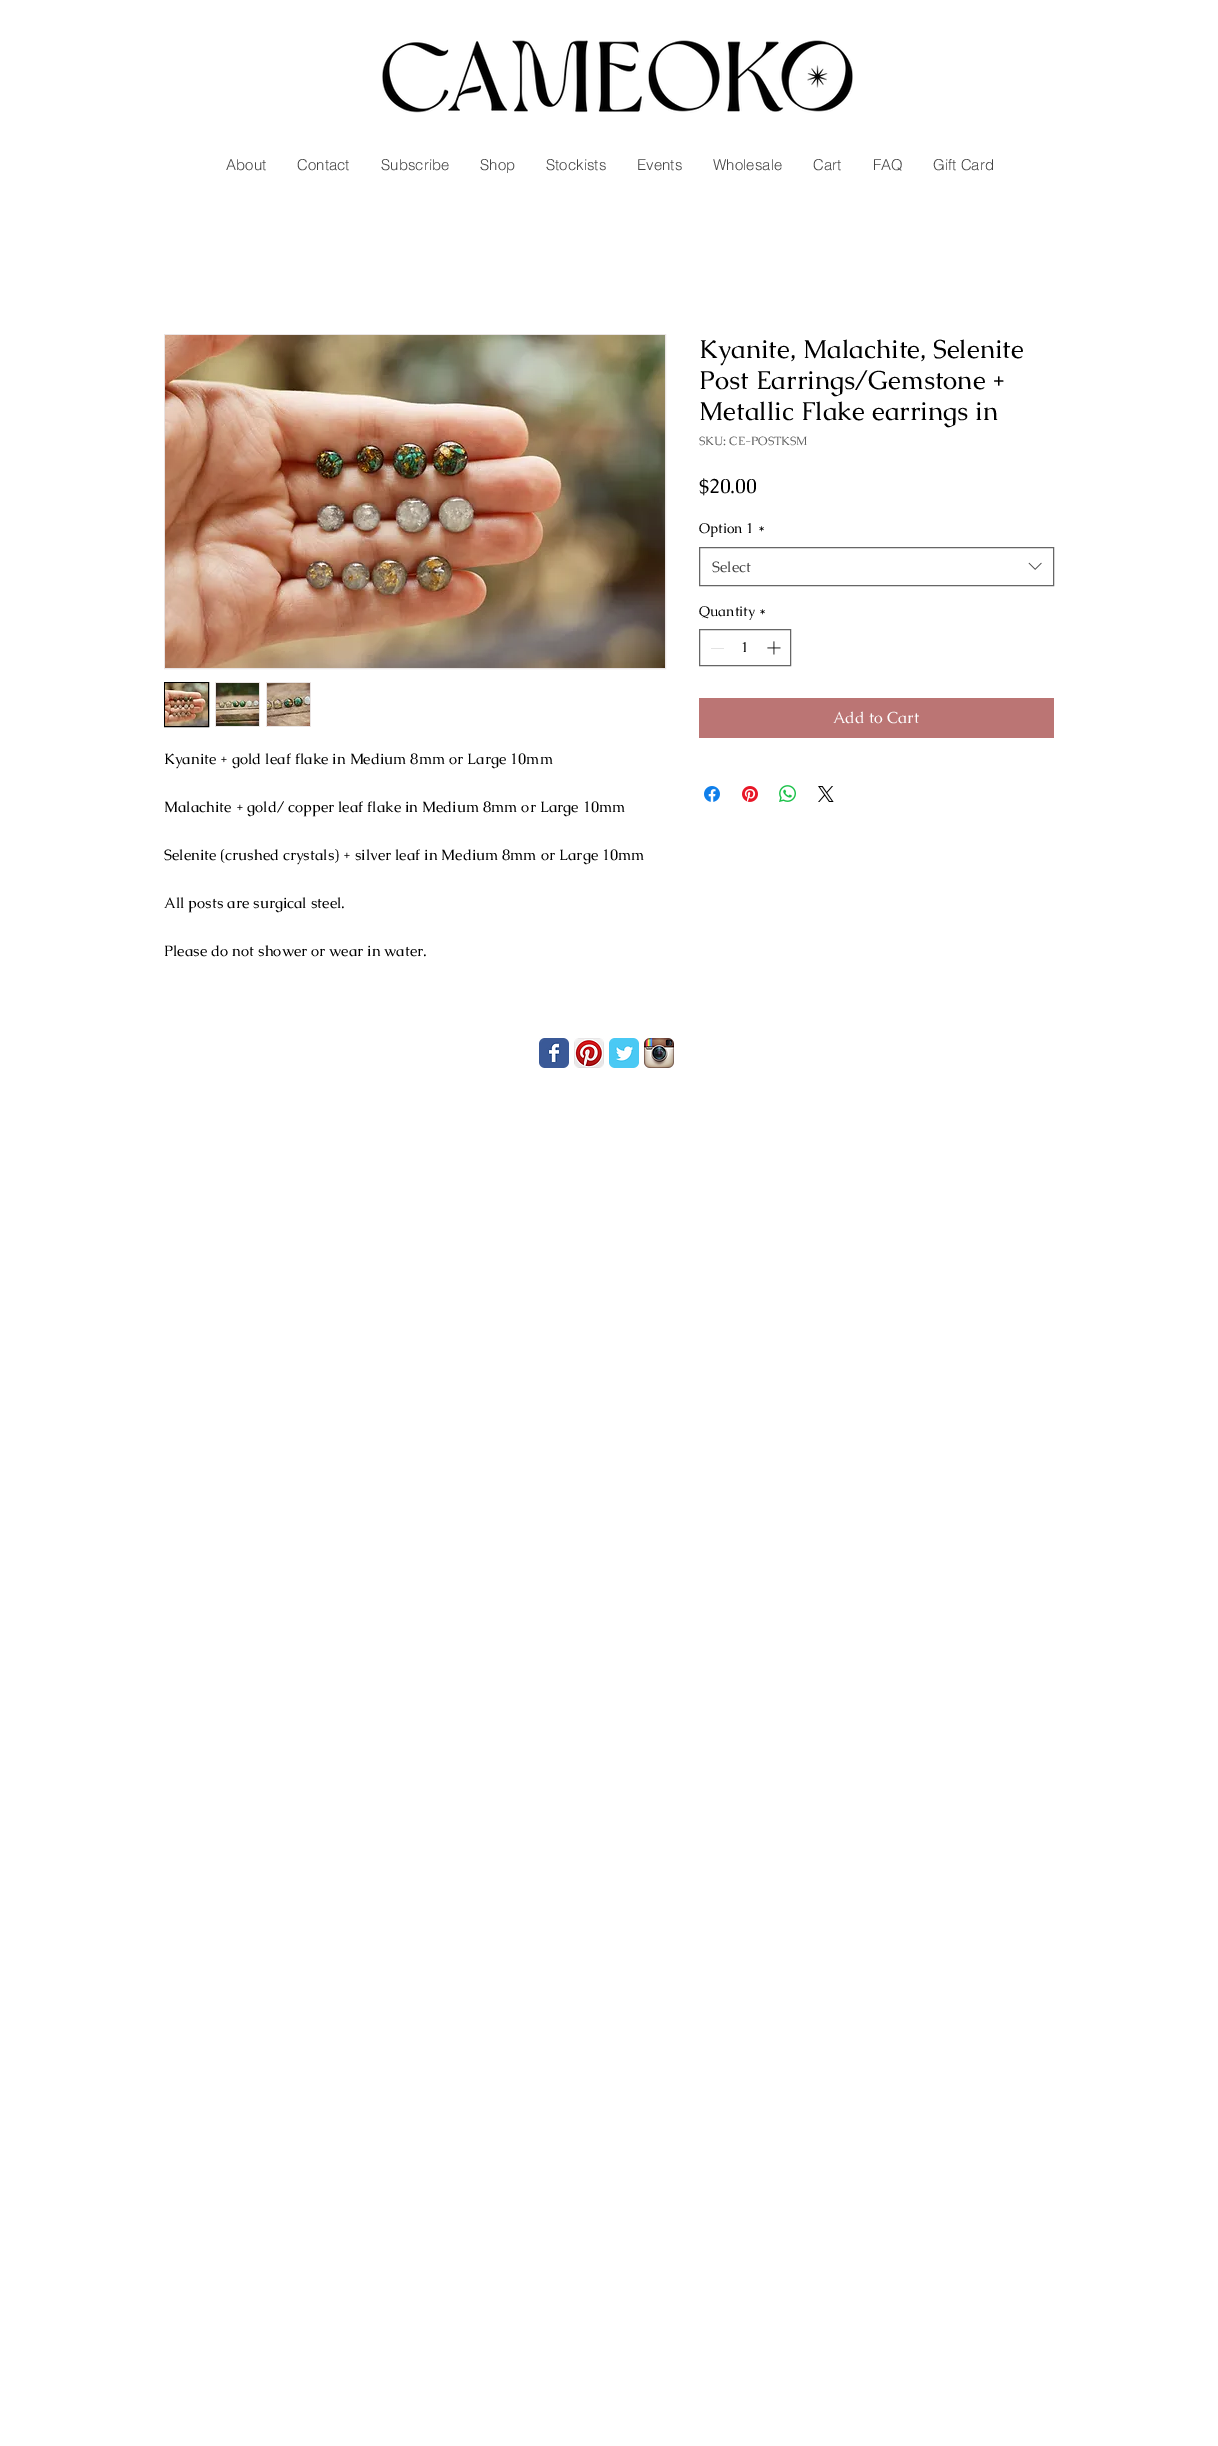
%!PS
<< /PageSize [1218 2446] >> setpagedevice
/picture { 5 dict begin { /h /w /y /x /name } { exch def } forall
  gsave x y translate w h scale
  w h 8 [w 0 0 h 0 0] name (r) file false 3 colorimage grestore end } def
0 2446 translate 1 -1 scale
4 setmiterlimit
1 setgray
0 0 1218 2446 rectfill
(img1.rgb) 382 40 471 73 picture
/helvetica-Light [15 0 0 -15 0 0] selectfont
0.267 setgray
226 170 moveto (About) show
297 170 moveto (Contact) show
381 170 moveto (Subscribe) show
480 170 moveto (Shop) show
546 170 moveto (Stockists) show
637 170 moveto (Events) show
713 170 moveto (Wholesale) show
813 170 moveto (Cart) show
873 170 moveto (FAQ) show
933 170 moveto (Gift Card) show
/Caudex-Regular [26 0 0 -26 0 0] selectfont
0 setgray
699 358 moveto (Kyanite, Malachite, Selenite) show
699 389 moveto (Post Earrings/Gemstone +) show
699 420 moveto (Metallic Flake earrings in) show
/Caudex-Regular [12 0 0 -12 0 0] selectfont
0.376 setgray
699 445 moveto (SKU: CE-POSTKSM) show
/Caudex-Regular [20 0 0 -20 0 0] selectfont
0 setgray
699 493 moveto ($20.00) show
/Caudex-Regular [14 0 0 -14 0 0] selectfont
699 533 moveto (Option 1 *) show
0.4 setgray
699.5 547.5 354 38 rectstroke
/Caudex-Regular [15 0 0 -15 0 0] selectfont
0.267 setgray
712 572 moveto (Select) show
(img2.rgb) 1028 562 14 8 picture
/Caudex-Regular [14 0 0 -14 0 0] selectfont
0 setgray
699 616 moveto (Quantity *) show
0.4 setgray
699.5 629.5 91 36 rectstroke
0.89 setgray
711 648 13 1 rectfill
0 setgray
741 652 moveto (1) show
(img3.rgb) 767 641 14 14 picture
0.733 0.459 0.455 setrgbcolor
699 698 355 40 rectfill
/Caudex-Regular [16 0 0 -16 0 0] selectfont
1 setgray
833 723 moveto (Add to Cart) show
(img4.rgb) 704 786 16 16 picture
(img5.rgb) 742 786 16 16 picture
(img6.rgb) 779 785 17 17 picture
(img7.rgb) 818 786 16 16 picture
0.918 0.898 0.898 setrgbcolor
164.5 334.5 501 334 rectstroke
(img8.rgb) 165 335 500 333 picture
0 setgray
164.5 682.5 44 44 rectstroke
(img9.rgb) 165 683 43 43 picture
0.918 0.898 0.898 setrgbcolor
215 682 45 45 rectfill
(img10.rgb) 216 683 43 43 picture
266 682 45 45 rectfill
(img11.rgb) 267 683 43 43 picture
/Caudex-Regular [15 0 0 -15 0 0] selectfont
0 setgray
164 764 moveto (Kyanite + gold leaf flake in Medium 8mm or Large 10mm) show
164 812 moveto (Malachite + gold/ copper leaf flake in Medium 8mm or Large 10mm) show
164 860 moveto (Selenite \(crushed crystals\) + silver leaf in Medium 8mm or Large 10mm) show
164 908 moveto (All posts are surgical steel.) show
164 956 moveto (Please do not shower or wear in water.) show
(img12.rgb) 539 1038 30 30 picture
(img13.rgb) 574 1038 30 30 picture
(img14.rgb) 609 1038 30 30 picture
(img15.rgb) 644 1038 30 30 picture
showpage
